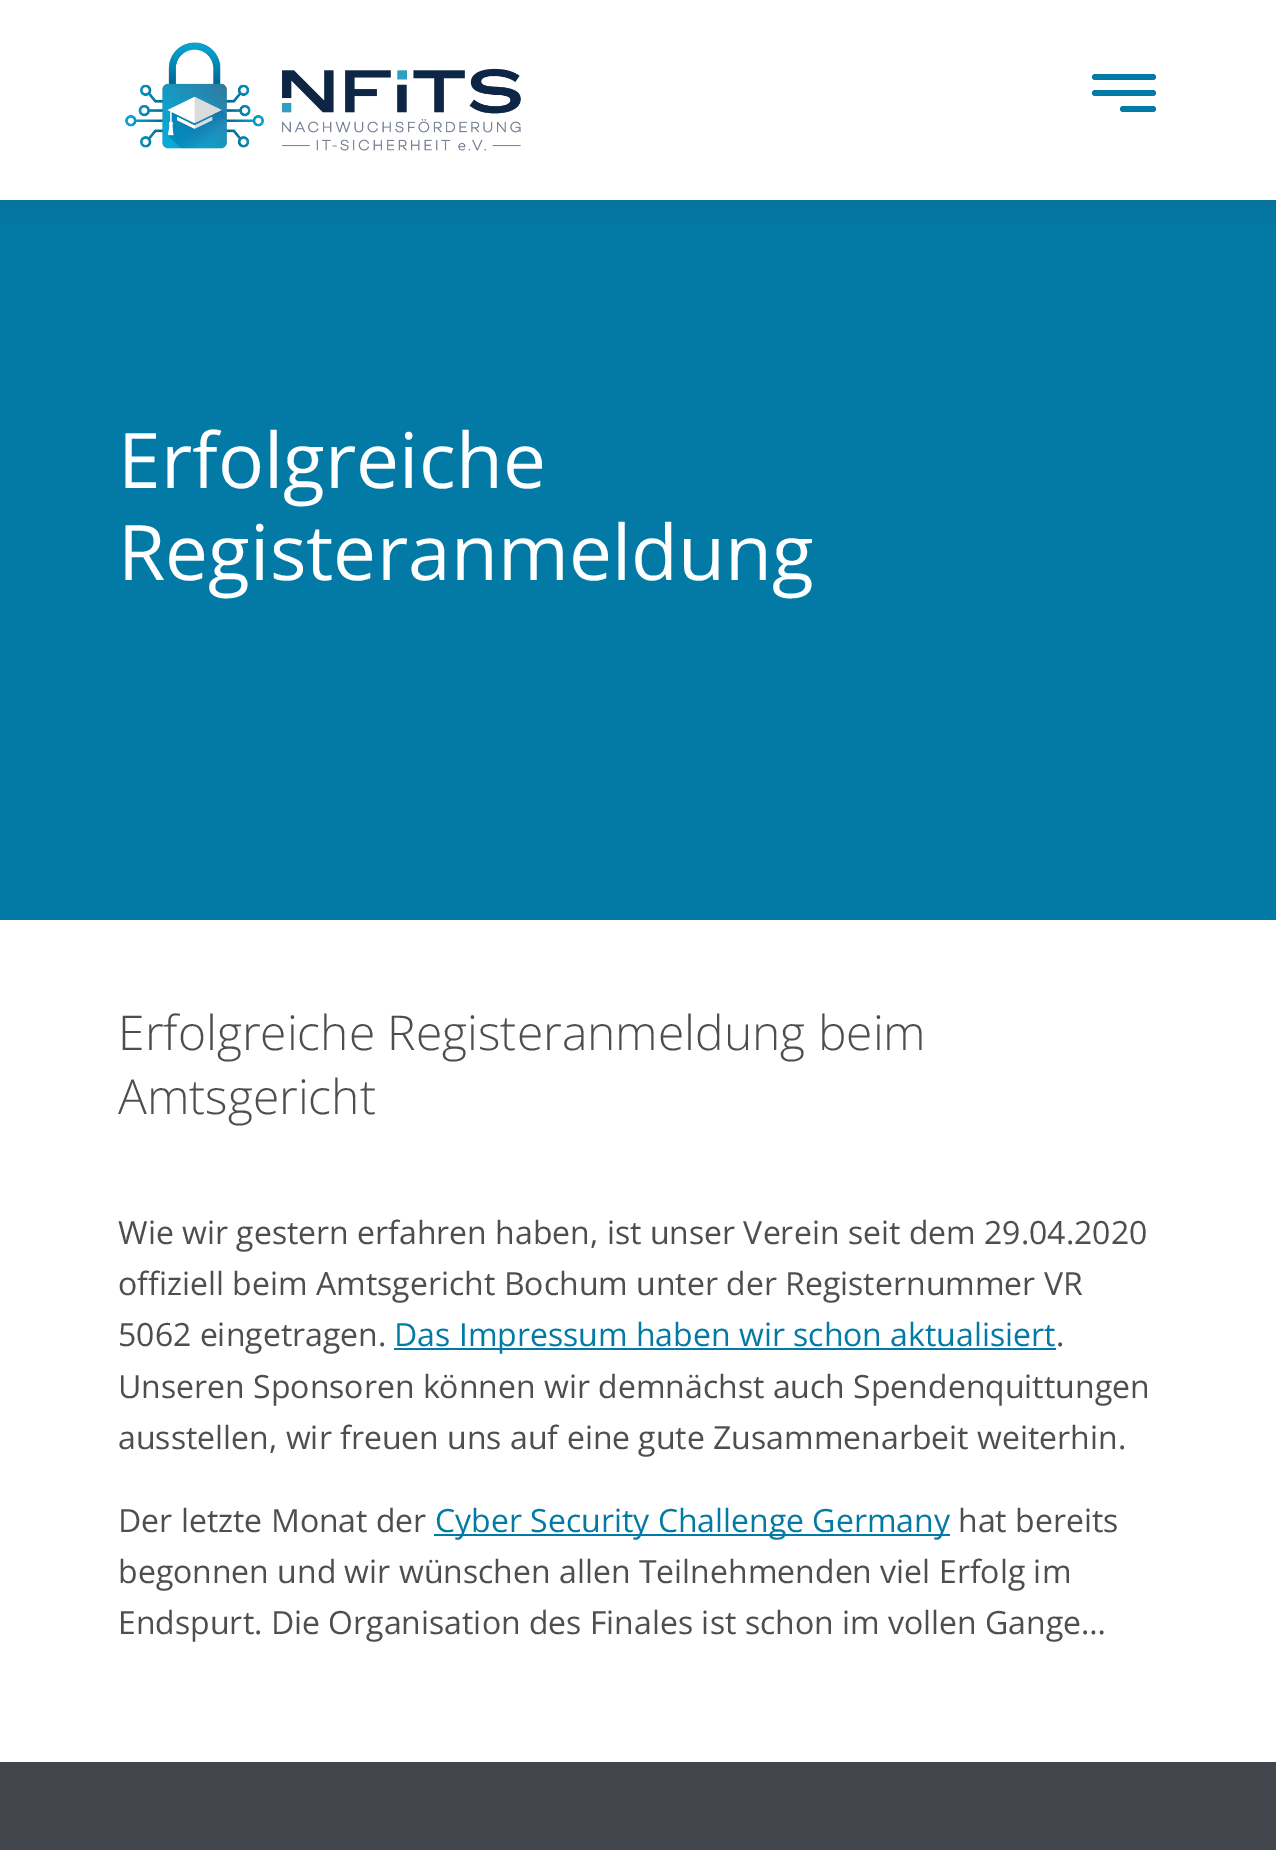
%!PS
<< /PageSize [1276 1850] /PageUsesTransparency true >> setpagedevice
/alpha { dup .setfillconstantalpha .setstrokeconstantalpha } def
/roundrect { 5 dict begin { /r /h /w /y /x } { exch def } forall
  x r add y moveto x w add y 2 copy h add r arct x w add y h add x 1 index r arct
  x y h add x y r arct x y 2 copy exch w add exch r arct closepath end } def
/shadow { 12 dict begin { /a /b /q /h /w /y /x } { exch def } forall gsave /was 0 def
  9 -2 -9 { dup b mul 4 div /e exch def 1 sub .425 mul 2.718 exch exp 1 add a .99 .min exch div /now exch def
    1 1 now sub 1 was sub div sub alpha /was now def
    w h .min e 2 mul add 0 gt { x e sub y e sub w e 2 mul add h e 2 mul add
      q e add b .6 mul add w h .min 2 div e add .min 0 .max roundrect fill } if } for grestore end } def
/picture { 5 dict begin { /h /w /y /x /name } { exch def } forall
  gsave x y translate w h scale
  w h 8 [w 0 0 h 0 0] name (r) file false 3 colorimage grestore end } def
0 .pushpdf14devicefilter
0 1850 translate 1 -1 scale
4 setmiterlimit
1 setgray
0 0 1276 1850 rectfill
0.008 0.478 0.647 setrgbcolor
0 200 1276 720 rectfill
0.196 0.196 0.365 setrgbcolor
0 2 1276 200 0 15 0.2 shadow
1 setgray
0 0 1276 200 rectfill
(img1.rgb) 125 42 396 109 picture
0.008 0.478 0.647 setrgbcolor
1092 74 64 6 3 roundrect fill
1092 90 64 6 3 roundrect fill
1120 106 36 6 3 roundrect fill
/OpenSans-Regular [76.75 0 0 -76.75 0 0] selectfont
1 setgray
118 488 moveto (Erfolgreiche) show
118 580 moveto (Registeranmeldung) show
/OpenSans-Light [48 0 0 -48 0 0] selectfont
0.306 setgray
118 1050 moveto (Erfolgreiche Registeranmeldung beim) show
118 1114 moveto (Amtsgericht) show
/OpenSans-Regular [32 0 0 -32 0 0] selectfont
118 1244 moveto (Wie wir gestern erfahren haben, ist unser Verein seit dem 29.04.2020) show
118 1295 moveto (offiziell beim Amtsgericht Bochum unter der Registernummer VR) show
118 1346 moveto (5062 eingetragen.) show
0.008 0.478 0.647 setrgbcolor
394 1348 662 2 rectfill
394 1346 moveto (Das Impressum haben wir schon aktualisiert) show
0.306 setgray
1056 1346 moveto (.) show
118 1398 moveto (Unseren Sponsoren können wir demnächst auch Spendenquittungen) show
118 1449 moveto (ausstellen, wir freuen uns auf eine gute Zusammenarbeit weiterhin.) show
118 1532 moveto (Der letzte Monat der) show
0.008 0.478 0.647 setrgbcolor
434 1534 516 2 rectfill
435 1532 moveto (Cyber Security Challenge Germany) show
0.306 setgray
958 1532 moveto (hat bereits) show
118 1583 moveto (begonnen und wir wünschen allen Teilnehmenden viel Erfolg im) show
118 1634 moveto (Endspurt. Die Organisation des Finales ist schon im vollen Gange…) show
0.263 0.271 0.302 setrgbcolor
0 1762 1276 88 rectfill
.poppdf14devicefilter showpage
